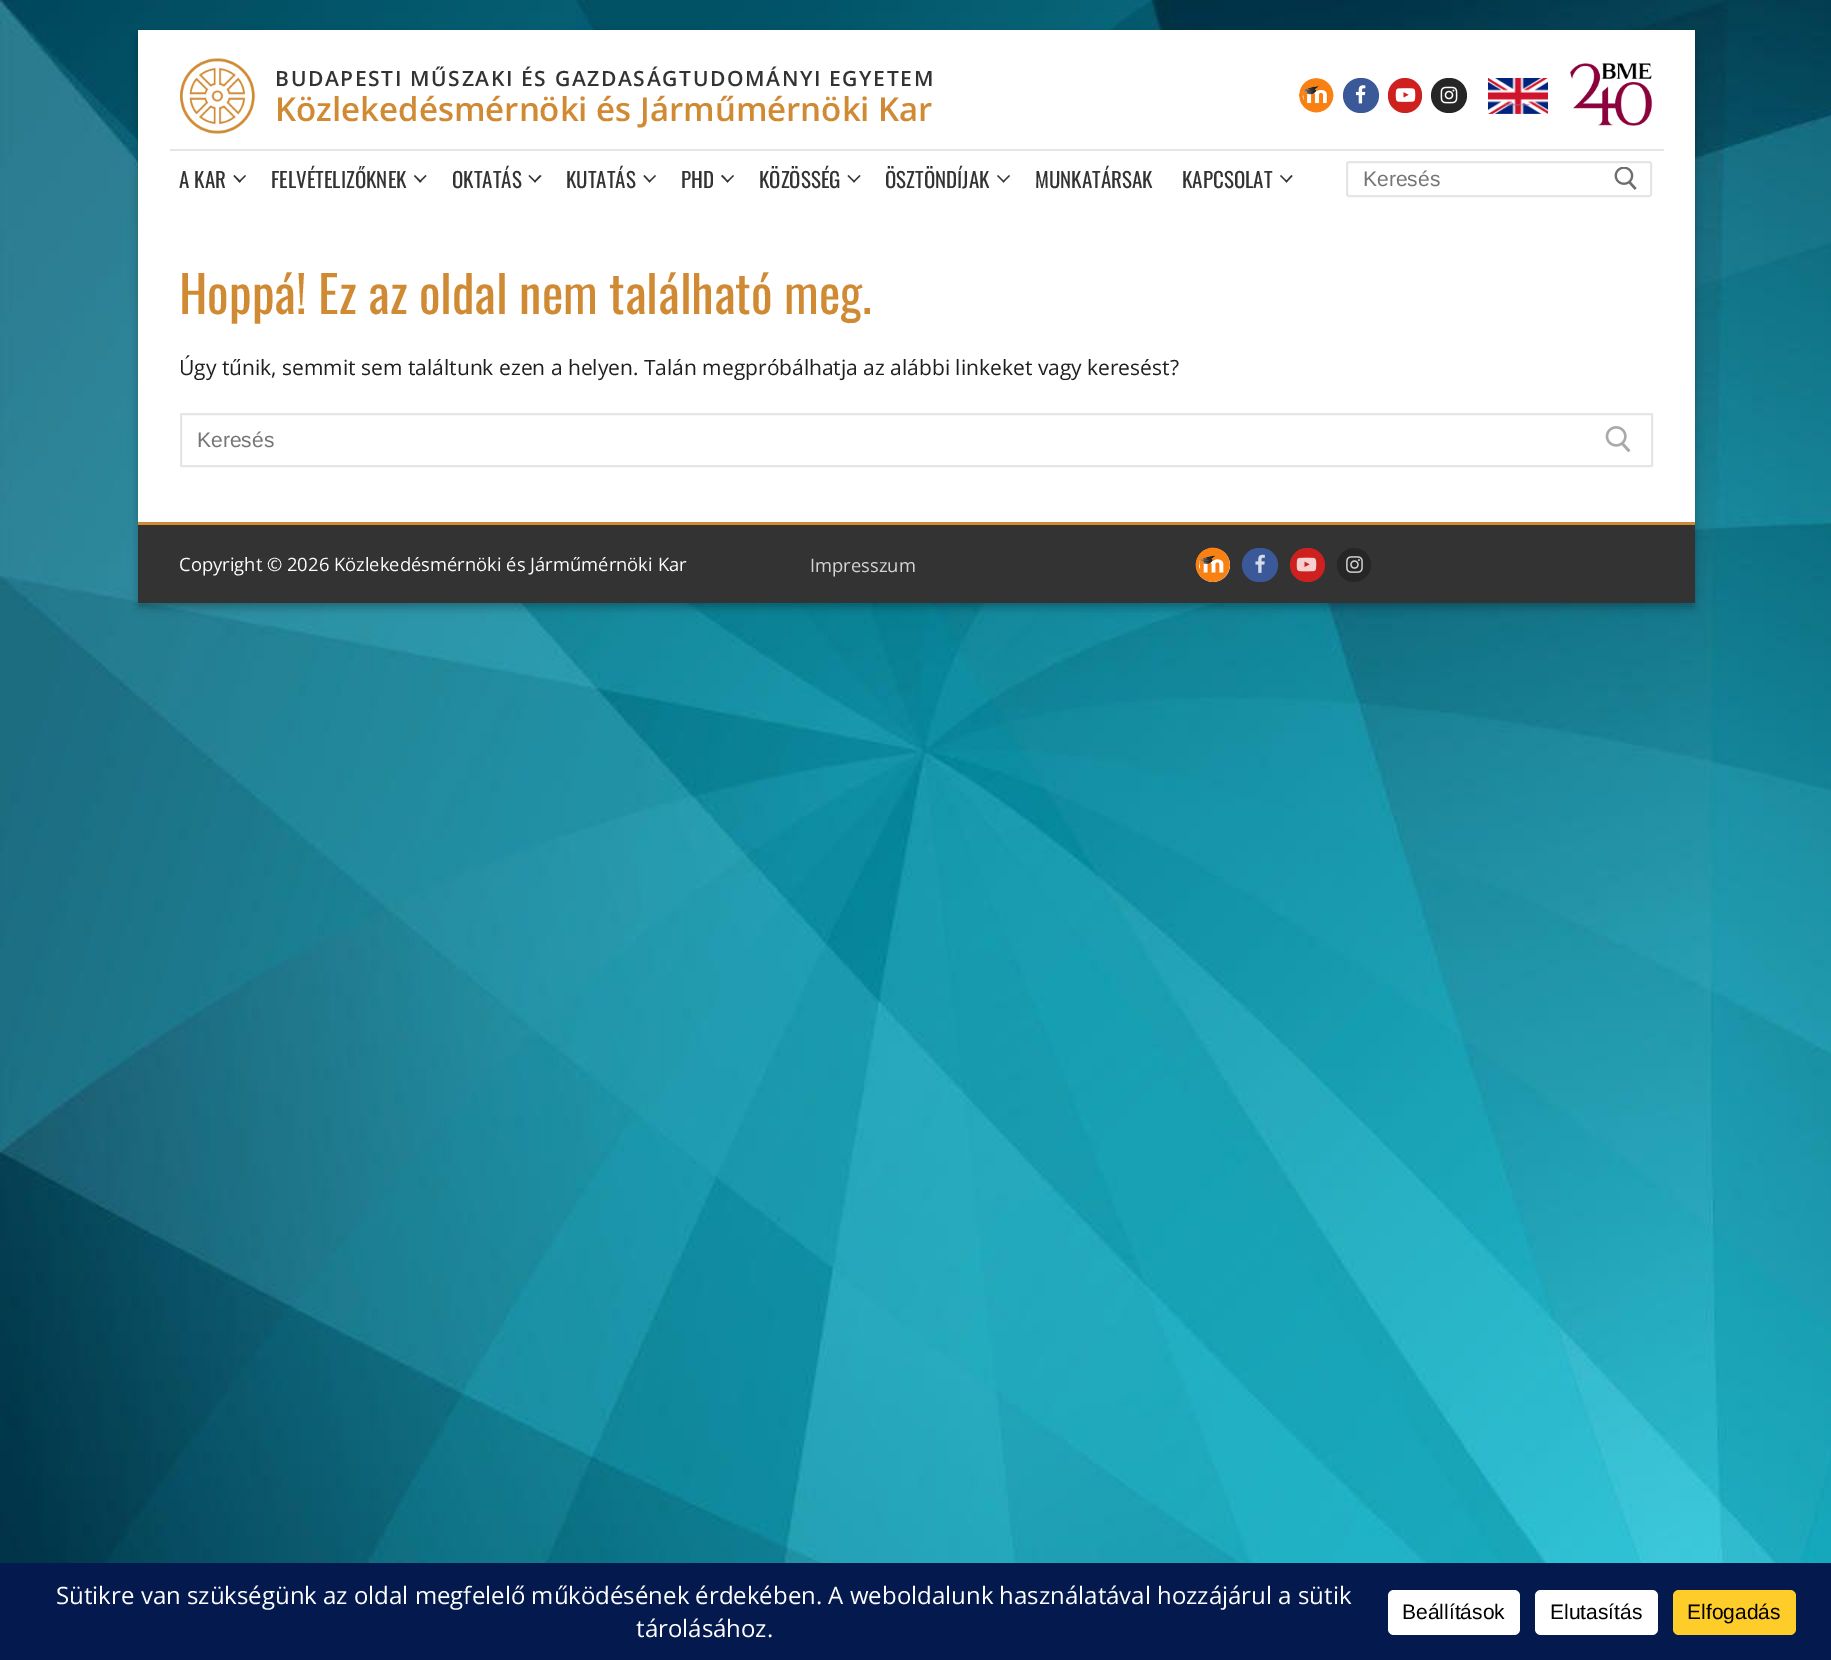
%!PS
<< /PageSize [1831 1660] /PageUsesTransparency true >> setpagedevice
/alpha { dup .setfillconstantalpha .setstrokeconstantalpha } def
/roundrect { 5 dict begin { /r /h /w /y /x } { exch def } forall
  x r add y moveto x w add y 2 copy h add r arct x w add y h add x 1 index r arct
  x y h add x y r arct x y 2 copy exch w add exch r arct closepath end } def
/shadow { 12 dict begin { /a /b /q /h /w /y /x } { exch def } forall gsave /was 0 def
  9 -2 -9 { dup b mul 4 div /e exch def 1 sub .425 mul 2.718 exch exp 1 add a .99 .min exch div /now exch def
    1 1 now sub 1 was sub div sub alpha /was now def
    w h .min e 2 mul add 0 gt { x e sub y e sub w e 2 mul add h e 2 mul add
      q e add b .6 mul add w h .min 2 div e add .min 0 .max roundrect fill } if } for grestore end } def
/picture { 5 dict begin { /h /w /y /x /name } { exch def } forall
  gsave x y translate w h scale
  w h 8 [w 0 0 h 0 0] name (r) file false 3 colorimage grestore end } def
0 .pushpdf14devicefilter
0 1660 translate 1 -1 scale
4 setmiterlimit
1 setgray
0 0 1831 1660 rectfill
(img1.rgb) 0 0 1831 1563 picture
0 setgray
138 35 1557 573 0 4.5 0.23 shadow
144 41 1545 561 0 4.5 0.16 shadow
1 setgray
138 30 1557 177 rectfill
(img2.rgb) 180 58 75 76 picture
/OpenSans-SemiBold [21 0 0 -21 0 0] selectfont
0.2 setgray
275 86 moveto 1.65 0 (BUDAPESTI MŰSZAKI ÉS GAZDASÁGTUDOMÁNYI EGYETEM) ashow
/OpenSans-SemiBold [33 0 0 -33 0 0] selectfont
0.812 0.541 0.2 setrgbcolor
275 121 moveto (Közlekedésmérnöki és Járműmérnöki Kar) show
(img3.rgb) 1298 78 36 35 picture
0.231 0.349 0.596 setrgbcolor
1343 78 36 35 17.5 roundrect fill
(img4.rgb) 1355 85 11 19 picture
0.804 0.125 0.122 setrgbcolor
1388 78 34 35 17 roundrect fill
(img5.rgb) 1395 88 21 14 picture
0.149 setgray
1431 78 36 35 17.5 roundrect fill
(img6.rgb) 1440 86 18 18 picture
(img7.rgb) 1488 78 60 36 picture
/OpenSans-Light [18 0 0 -18 0 0] selectfont
0.647 0.427 0.561 setrgbcolor
1505 103 moveto 1 0 (___) ashow
(img8.rgb) 1570 63 83 63 picture
0.898 setgray
170 149 1494 2 rectfill
/Oswald-Regular [21 0 0 -21 0 0] selectfont
0.2 setgray
179 188 moveto (A KAR) show
newpath 239.5 182.5 moveto 233.5 176 lineto 234.5 175 lineto 241 181.5 lineto closepath fill
newpath 239.5 182.5 moveto 238.5 181.5 lineto 245 175 lineto 246 176 lineto closepath fill
271 188 moveto (FELVÉTELIZŐKNEK) show
newpath 420 182.5 moveto 414 176 lineto 415 175 lineto 421.5 181.5 lineto closepath fill
newpath 420 182.5 moveto 419 181.5 lineto 425.5 175 lineto 426.5 176 lineto closepath fill
452 188 moveto (OKTATÁS) show
newpath 535 182.5 moveto 528.5 176 lineto 529.5 175 lineto 536 181.5 lineto closepath fill
newpath 535 182.5 moveto 534 181.5 lineto 540 175 lineto 541.5 176 lineto closepath fill
566 188 moveto (KUTATÁS) show
newpath 649.5 182.5 moveto 643.5 176 lineto 644.5 175 lineto 650.5 181.5 lineto closepath fill
newpath 649.5 182.5 moveto 648.5 181.5 lineto 655 175 lineto 656 176 lineto closepath fill
681 188 moveto (PHD) show
newpath 727.5 182.5 moveto 721 176 lineto 722.5 175 lineto 728.5 181.5 lineto closepath fill
newpath 727.5 182.5 moveto 726.5 181.5 lineto 733 175 lineto 734 176 lineto closepath fill
759 188 moveto (KÖZÖSSÉG) show
newpath 854 182.5 moveto 847.5 176 lineto 848.5 175 lineto 855 181.5 lineto closepath fill
newpath 854 182.5 moveto 853 181.5 lineto 859.5 175 lineto 860.5 176 lineto closepath fill
885 188 moveto (ÖSZTÖNDÍJAK) show
newpath 1003.5 182.5 moveto 997 176 lineto 998 175 lineto 1004.5 181.5 lineto closepath fill
newpath 1003.5 182.5 moveto 1002.5 181.5 lineto 1009 175 lineto 1010 176 lineto closepath fill
1035 188 moveto (MUNKATÁRSAK) show
1182 188 moveto (KAPCSOLAT) show
newpath 1286.5 182.5 moveto 1280 176 lineto 1281 175 lineto 1287.5 181.5 lineto closepath fill
newpath 1286.5 182.5 moveto 1285.5 181.5 lineto 1291.5 175 lineto 1292.5 176 lineto closepath fill
0.898 setgray
2 setlinewidth
1347 162 304 34 2 roundrect stroke
/LiberationSans-Regular [21 0 0 -21 0 0] selectfont
0.459 setgray
1363 186 moveto (Keresés) show
(img9.rgb) 1614 167 23 23 picture
1 setgray
138 207 1557 315 rectfill
/Oswald-Regular [50.75 0 0 -50.75 0 0] selectfont
0.812 0.541 0.2 setrgbcolor
179 314 moveto (Hoppá! Ez az oldal nem található meg.) show
/OpenSans-Regular [21 0 0 -21 0 0] selectfont
0.125 setgray
179 375 moveto (Úgy tűnik, semmit sem találtunk ezen a helyen. Talán megpróbálhatja az alábbi linkeket vagy keresést?) show
0.898 setgray
181 414 1471 52 0.5 roundrect stroke
/LiberationSans-Regular [21 0 0 -21 0 0] selectfont
0.459 setgray
197 447 moveto (Keresés) show
(img10.rgb) 1605 426 26 27 picture
0.2 setgray
138 525 1557 78 rectfill
0.812 0.541 0.2 setrgbcolor
138 522 1557 3 rectfill
/OpenSans-Regular [18.4 0 0 -18.4 0 0] selectfont
0.992 setgray
179 571 moveto (Copyright © 2026 Közlekedésmérnöki és Járműmérnöki Kar) show
0.831 setgray
810 572 moveto (Impresszum) show
1 setgray
newpath 1213 565 17 0 360 arc closepath fill
(img11.rgb) 1195 547 35 35 picture
0.231 0.349 0.596 setrgbcolor
1242 548 36 34 17 roundrect fill
(img12.rgb) 1255 554 10 19 picture
0.804 0.125 0.122 setrgbcolor
1290 548 35 34 17 roundrect fill
(img13.rgb) 1296 557 21 15 picture
0.149 setgray
newpath 1354 565 17 0 360 arc closepath fill
(img14.rgb) 1346 556 17 17 picture
0.016 0.098 0.306 setrgbcolor
0 1563 1831 97 rectfill
/OpenSans-Regular [24 0 0 -24 0 0] selectfont
0.992 setgray
56 1604 moveto (Sütikre van szükségünk az oldal megfelelő működésének érdekében. A weboldalunk használatával hozzájárul a sütik) show
636 1637 moveto (tárolásához.) show
1 setgray
1388 1590 132 45 6 roundrect fill
/LiberationSans-Regular [21 0 0 -21 0 0] selectfont
0 setgray
1402 1619 moveto (Beállítások) show
1 setgray
1535 1590 123 45 6 roundrect fill
0 setgray
1550 1619 moveto (Elutasítás) show
1 0.804 0.165 setrgbcolor
1673 1590 123 45 6 roundrect fill
0 setgray
1687 1619 moveto (Elfogadás) show
.poppdf14devicefilter showpage
